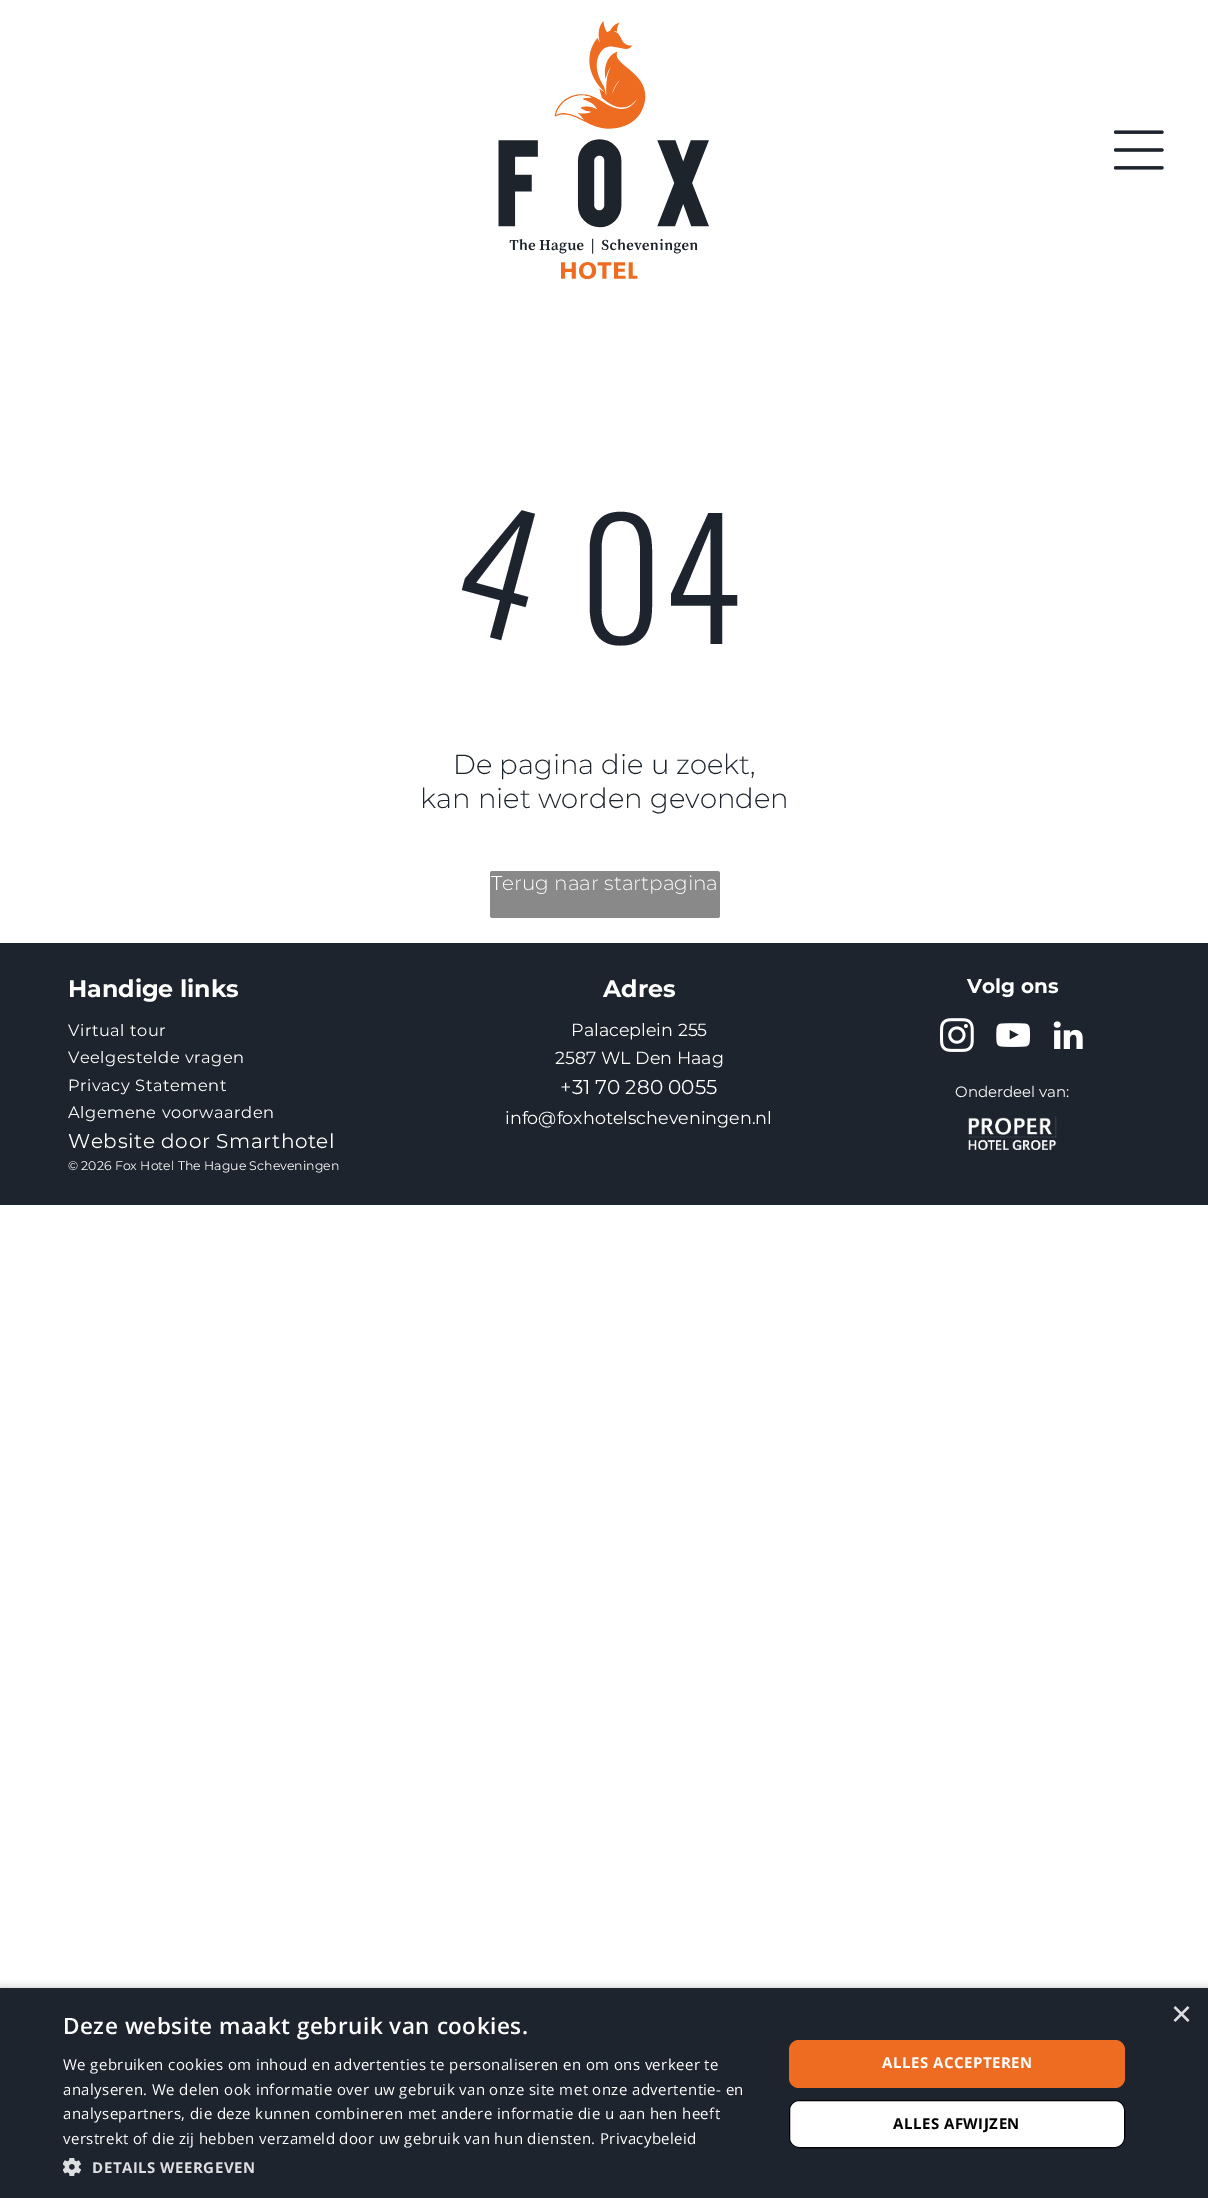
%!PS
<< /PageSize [1208 2198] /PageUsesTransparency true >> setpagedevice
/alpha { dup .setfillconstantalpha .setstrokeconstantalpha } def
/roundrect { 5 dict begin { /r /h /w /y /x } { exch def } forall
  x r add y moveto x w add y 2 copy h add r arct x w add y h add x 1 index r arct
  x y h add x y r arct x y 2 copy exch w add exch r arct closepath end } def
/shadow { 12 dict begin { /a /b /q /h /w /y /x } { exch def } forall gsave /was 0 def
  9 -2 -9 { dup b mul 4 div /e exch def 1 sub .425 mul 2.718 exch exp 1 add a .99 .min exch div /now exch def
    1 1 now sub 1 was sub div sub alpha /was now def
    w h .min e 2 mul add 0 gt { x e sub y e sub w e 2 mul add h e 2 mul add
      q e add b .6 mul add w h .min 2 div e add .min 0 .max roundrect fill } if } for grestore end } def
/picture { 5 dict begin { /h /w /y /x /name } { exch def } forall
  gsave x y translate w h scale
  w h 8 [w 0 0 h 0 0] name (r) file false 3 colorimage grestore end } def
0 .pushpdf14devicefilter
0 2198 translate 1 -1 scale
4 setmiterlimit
1 setgray
0 0 1208 2198 rectfill
(img1.rgb) 498 21 211 258 picture
(img2.rgb) 1114 130 50 40 picture
/Oswald-Light [162 0 0 -162 0 0] selectfont
0.118 0.141 0.176 setrgbcolor
gsave 444 625 translate 15 rotate 0 0 moveto (4) show grestore
579 644 moveto (04) show
/Montserrat-Light [27.5 0 0 -27.5 0 0] selectfont
453 774 moveto (De pagina die u zoekt,) show
420 808 moveto (kan niet worden gevonden) show
0.537 setgray
490 871 230 47 2.5 roundrect fill
/Montserrat-Light [20 0 0 -20 0 0] selectfont
1 setgray
491 890 moveto (Terug naar startpagina) show
0.118 0.141 0.176 setrgbcolor
0 943 1208 262 rectfill
/Montserrat-Bold [23.75 0 0 -23.75 0 0] selectfont
1 setgray
68 997 moveto (Handige links) show
/Montserrat-Regular [16.25 0 0 -16.25 0 0] selectfont
68 1036 moveto 0.5 0 (Virtual tour) ashow
68 1063 moveto 0.5 0 (Veelgestelde vragen) ashow
68 1091 moveto 0.5 0 (Privacy Statement) ashow
68 1118 moveto 0.5 0 (Algemene voorwaarden) ashow
/Montserrat-Regular [20 0 0 -20 0 0] selectfont
68 1148 moveto 0.6 0 (Website door Smarthotel) ashow
/Montserrat-Regular [12.5 0 0 -12.5 0 0] selectfont
68 1170 moveto (© 2026 Fox Hotel The Hague Scheveningen) show
/Montserrat-Bold [23.75 0 0 -23.75 0 0] selectfont
603 997 moveto (Adres) show
/Montserrat-Regular [17.5 0 0 -17.5 0 0] selectfont
571 1036 moveto (Palaceplein 255) show
555 1064 moveto (2587 WL Den Haag) show
/Montserrat-Regular [20 0 0 -20 0 0] selectfont
560 1094 moveto (+31 70 280 0055) show
/Montserrat-Regular [17.5 0 0 -17.5 0 0] selectfont
505 1124 moveto (info@foxhotelscheveningen.nl) show
/Montserrat-Bold [20 0 0 -20 0 0] selectfont
967 993 moveto (Volg ons) show
(img3.rgb) 940 1018 34 34 picture
(img4.rgb) 996 1023 35 24 picture
(img5.rgb) 1053 1021 30 28 picture
/Montserrat-Regular [15 0 0 -15 0 0] selectfont
955 1097 moveto (Onderdeel van:) show
(img6.rgb) 968 1116 89 34 picture
0 setgray
1 1990 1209 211 0 5 0.35 shadow
0.118 0.141 0.18 setrgbcolor
0 1988 1208 210 rectfill
/LiberationSans-Regular [36 0 0 -36 0 0] selectfont
0.867 0.871 0.878 setrgbcolor
1171 2026 moveto (×) show
/OpenSans-SemiBold [22.5 0 0 -22.5 0 0] selectfont
1 setgray
63 2034 moveto 0.5 0 (Deze website maakt gebruik van cookies.) ashow
/OpenSans-Regular [15 0 0 -15 0 0] selectfont
63 2070 moveto 0.38 0 (We gebruiken cookies om inhoud en advertenties te personaliseren en om ons verkeer te) ashow
63 2095 moveto 0.38 0 (analyseren. We delen ook informatie over uw gebruik van onze site met onze advertentie- en) ashow
63 2119 moveto 0.38 0 (analysepartners, die deze kunnen combineren met andere informatie die u aan hen heeft) ashow
63 2144 moveto 0.38 0 (verstrekt of die zij hebben verzameld door uw gebruik van hun diensten. Privacybeleid) ashow
(img7.rgb) 63 2158 18 18 picture
/OpenSans-Bold [15 0 0 -15 0 0] selectfont
0.867 0.871 0.878 setrgbcolor
92 2173 moveto 0.5 0 (DETAILS WEERGEVEN) ashow
0.929 0.424 0.133 setrgbcolor
789 2040 336 48 10 roundrect fill
1 setgray
882 2068 moveto 0.5 0 (ALLES ACCEPTEREN) ashow
789.5 2100.5 335 47 9.5 roundrect gsave fill grestore
0 setgray
stroke
893 2129 moveto 0.5 0 (ALLES AFWIJZEN) ashow
.poppdf14devicefilter showpage
